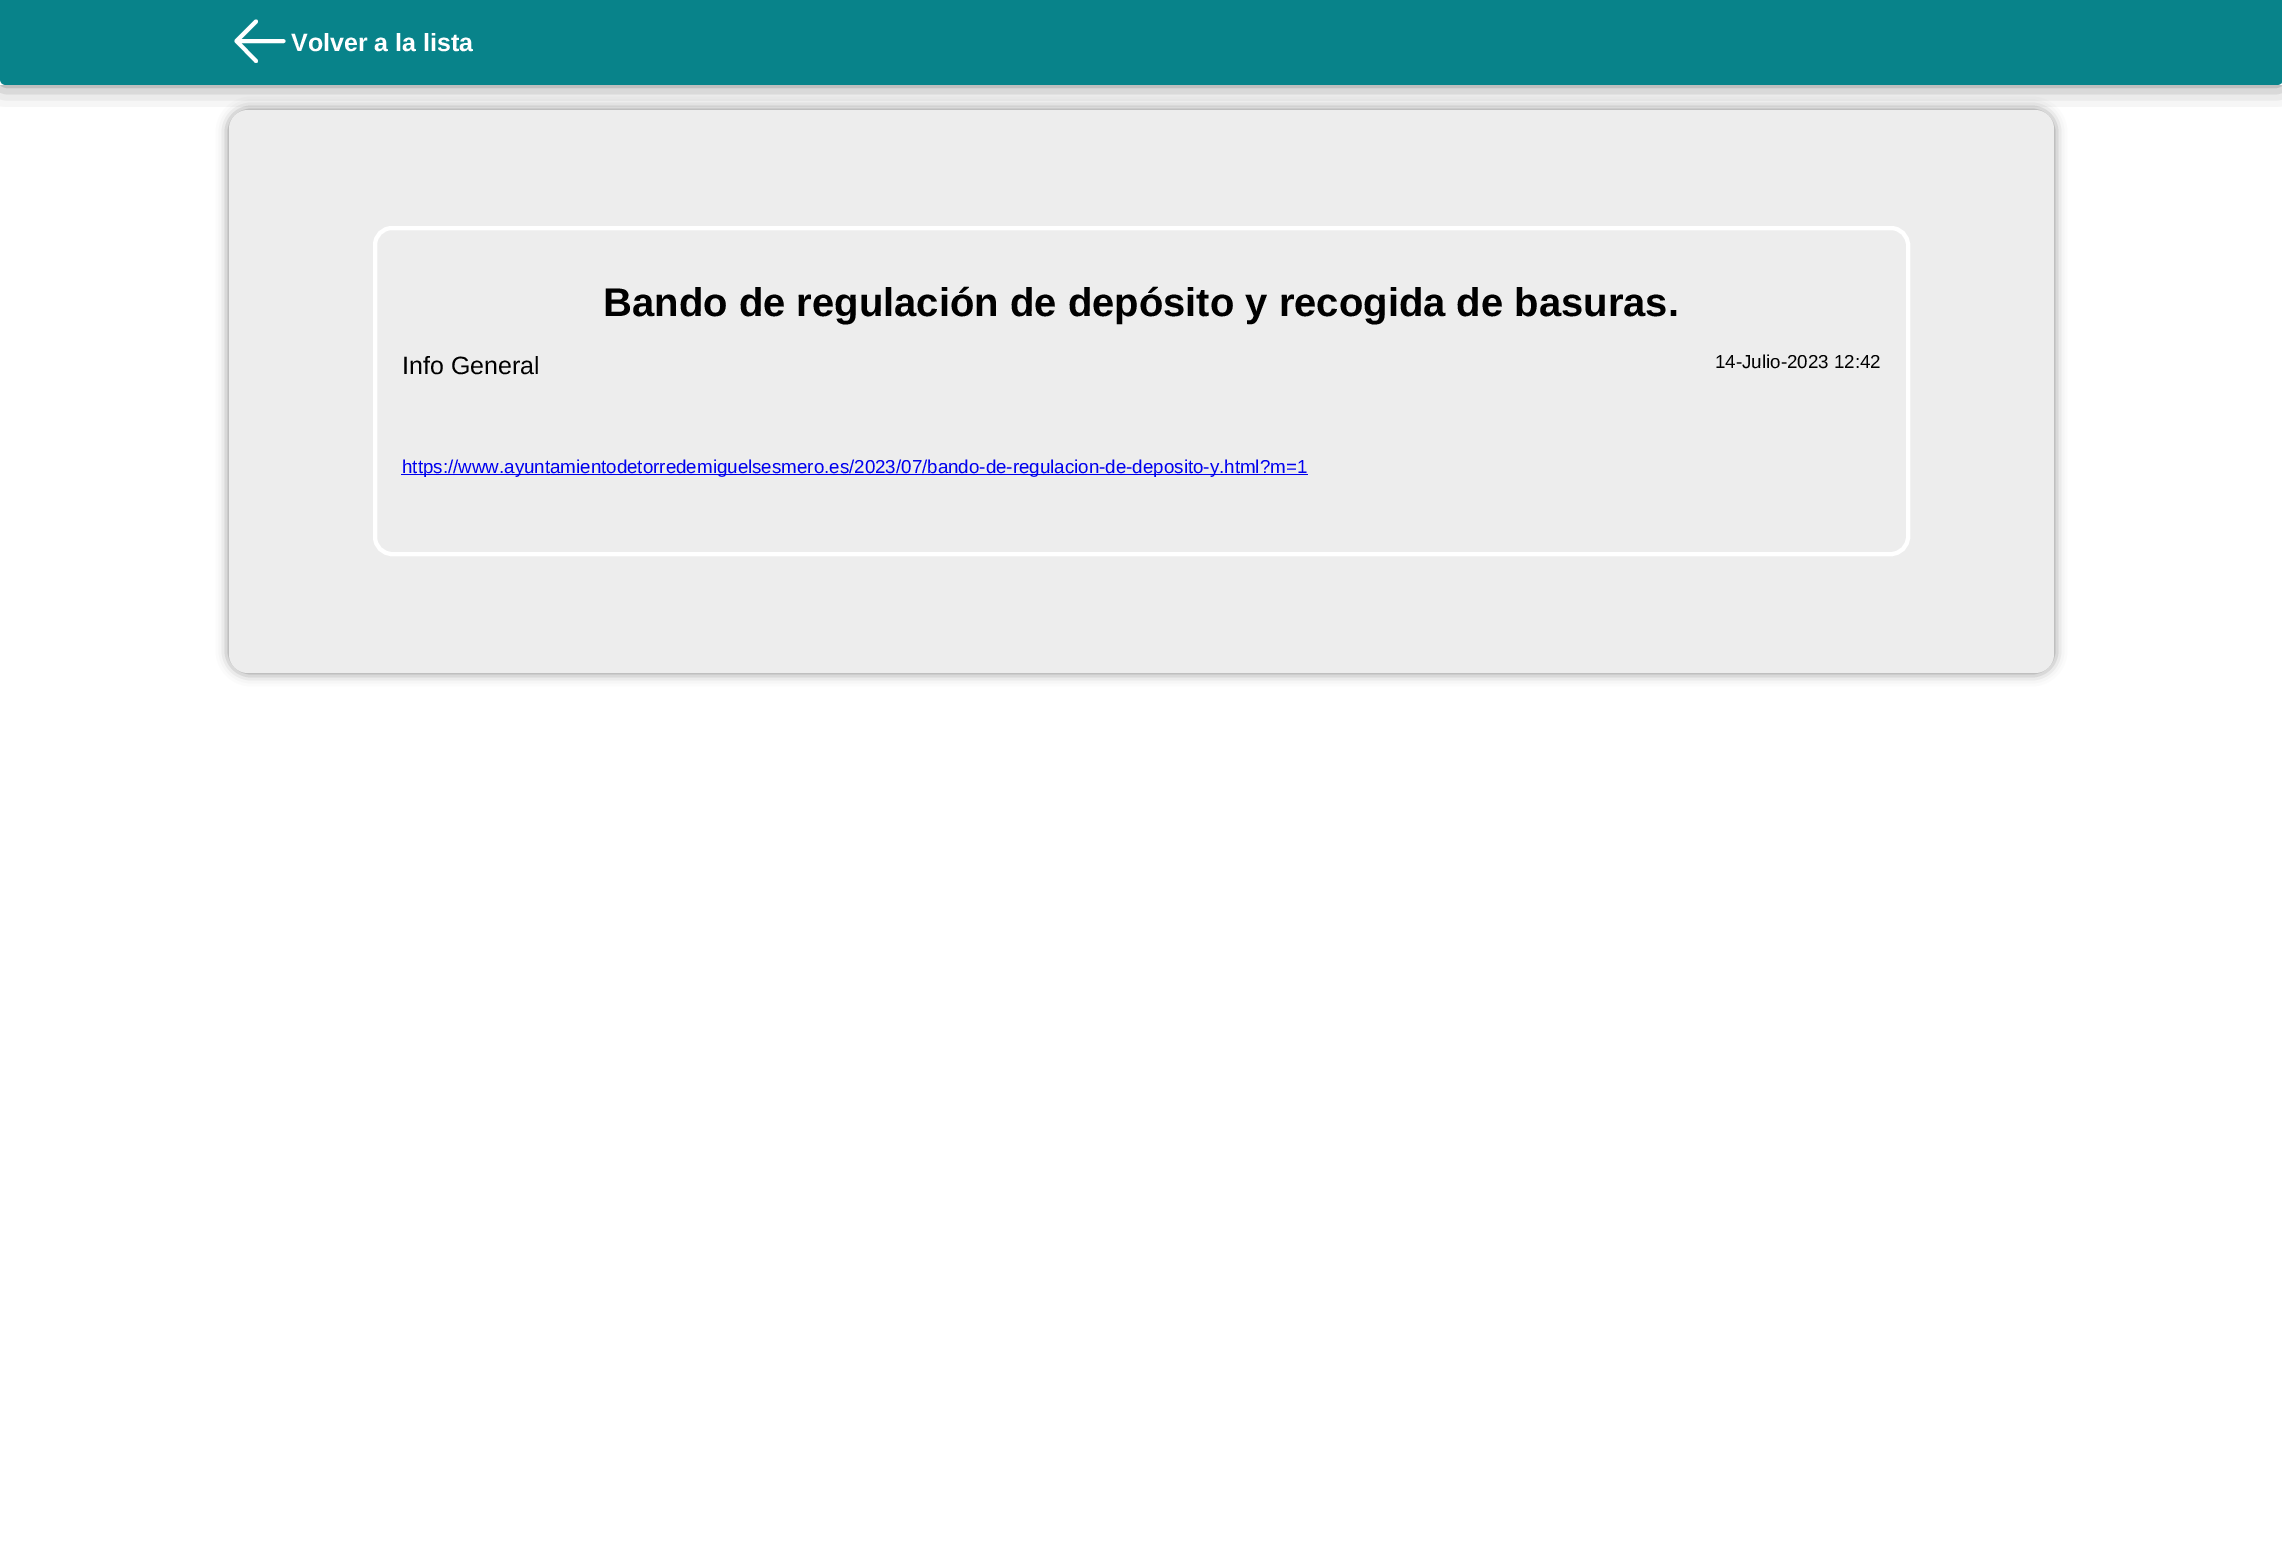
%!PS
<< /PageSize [2282 1554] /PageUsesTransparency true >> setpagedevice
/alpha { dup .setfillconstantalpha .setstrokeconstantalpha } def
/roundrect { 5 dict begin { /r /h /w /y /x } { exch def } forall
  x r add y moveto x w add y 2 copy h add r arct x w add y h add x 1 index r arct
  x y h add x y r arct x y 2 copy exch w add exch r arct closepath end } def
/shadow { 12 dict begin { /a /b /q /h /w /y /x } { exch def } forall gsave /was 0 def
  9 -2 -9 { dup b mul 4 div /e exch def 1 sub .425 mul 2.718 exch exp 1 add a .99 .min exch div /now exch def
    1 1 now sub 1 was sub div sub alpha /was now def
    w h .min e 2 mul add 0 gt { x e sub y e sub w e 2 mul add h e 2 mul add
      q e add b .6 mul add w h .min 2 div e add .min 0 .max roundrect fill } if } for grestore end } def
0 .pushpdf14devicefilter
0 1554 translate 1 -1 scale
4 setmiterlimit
1 setgray
0 0 2282 1554 rectfill
gsave
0 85 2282 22 rectclip
0 setgray
0 0 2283 85 0 12.5 0.5 shadow
grestore
0.031 0.514 0.541 setrgbcolor
newpath 0 0 moveto 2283 0 lineto 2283 79 lineto 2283 82.5 2280.5 85 2277 85 curveto 6 85 lineto 2.5 85 0 82.5 0 79 curveto closepath fill
1 setgray
3.9 setlinewidth
1 setlinecap
1 setlinejoin
newpath 256 61 moveto 236.5 41 lineto 236.5 41 moveto 256 21.5 lineto 236.5 41 moveto 283.5 41 lineto stroke
/LiberationSans-Bold [25 0 0 -25 0 0] selectfont
291 51 moveto (Volver a la lista) show
0 setgray
229 110 1825 563 19 6 0.5 shadow
0.929 setgray
229 110 1825 563 19 roundrect fill
1 setgray
4 setlinewidth
0 setlinecap
0 setlinejoin
375 228 1533 326 17 roundrect stroke
/LiberationSans-Bold [40 0 0 -40 0 0] selectfont
0 setgray
603 316 moveto (Bando de regulación de depósito y recogida de basuras.) show
/LiberationSans-Regular [25 0 0 -25 0 0] selectfont
402 374 moveto (Info General) show
/LiberationSans-Regular [18.75 0 0 -18.75 0 0] selectfont
1715 368 moveto (14-Julio-2023 12:42) show
0 0 0.933 setrgbcolor
401 474 907 1 rectfill
402 473 moveto (https://www.ayuntamientodetorredemiguelsesmero.es/2023/07/bando-de-regulacion-de-deposito-y.html?m=1) show
.poppdf14devicefilter showpage
